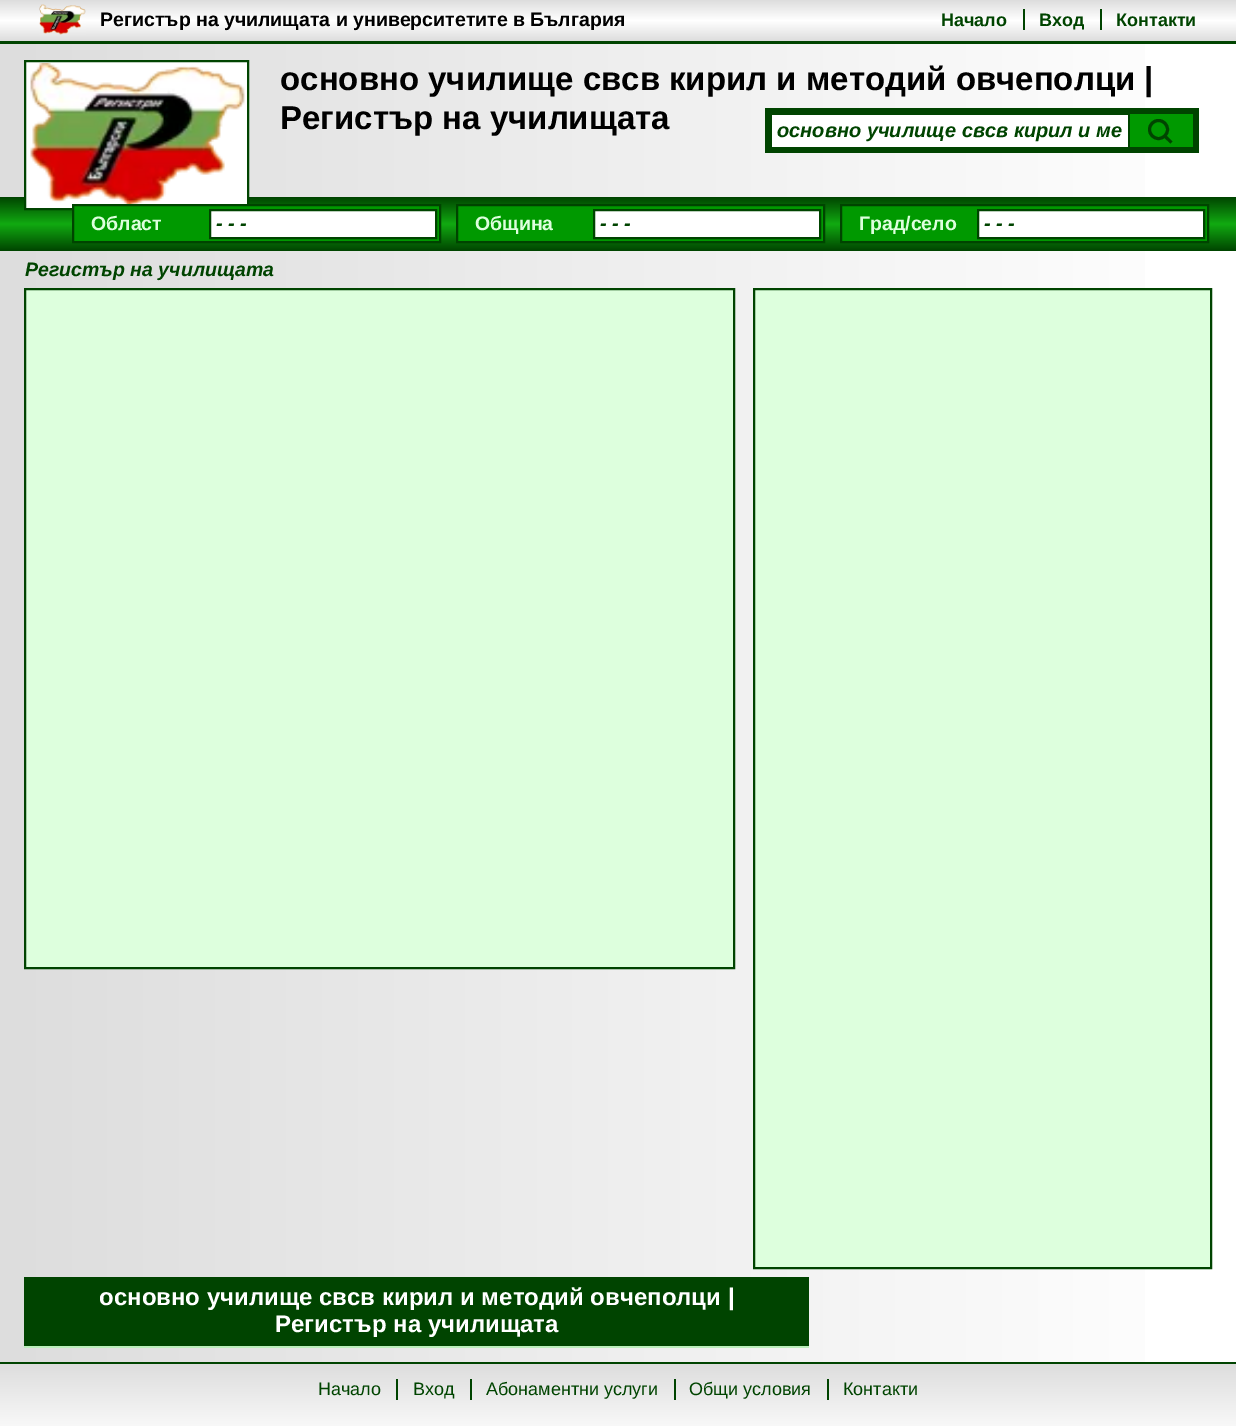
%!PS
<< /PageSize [1236 1426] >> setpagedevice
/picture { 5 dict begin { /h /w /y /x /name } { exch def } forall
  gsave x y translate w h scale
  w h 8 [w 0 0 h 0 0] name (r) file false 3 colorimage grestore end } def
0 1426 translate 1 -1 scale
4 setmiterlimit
1 setgray
0 0 1236 1426 rectfill
gsave newpath 0 44 moveto 1145 44 lineto 1145 1362 lineto 0 1362 lineto closepath clip newpath
<< /ShadingType 2 /ColorSpace /DeviceRGB /Coords [1236 722 0 722] /Extend [true true] /Function << /FunctionType 2 /Domain [0 1] /C0 [1 1 1] /C1 [0.867 0.867 0.867] /N 1 >> >> shfill grestore
gsave newpath 0 0 moveto 1236 0 lineto 1236 41 lineto 0 41 lineto closepath clip newpath
<< /ShadingType 2 /ColorSpace /DeviceRGB /Coords [618 41 618 0] /Extend [true true] /Function << /FunctionType 3 /Domain [0 1] /Functions [<< /FunctionType 2 /Domain [0 1] /C0 [0.867 0.867 0.867] /C1 [1 1 1] /N 1 >> << /FunctionType 2 /Domain [0 1] /C0 [1 1 1] /C1 [0.867 0.867 0.867] /N 1 >>] /Bounds [0.5] /Encode [0 1 0 1] >> >> shfill grestore
0 0.267 0 setrgbcolor
0 41 1236 3 rectfill
(img1.rgb) 39 4 47 31 picture
/LiberationSans-Bold [19.5 0 0 -19.5 0 0] selectfont
0 setgray
100 26 moveto (Регистър на училищата и университетите в България) show
/LiberationSans-Bold [18 0 0 -18 0 0] selectfont
0 0.267 0 setrgbcolor
941 26 moveto (Начало) show
1039 26 moveto (Вход) show
1023 9 2 21 rectfill
1116 26 moveto (Контакти) show
1100 9 2 21 rectfill
gsave newpath 0 197 moveto 1236 197 lineto 1236 251 lineto 0 251 lineto closepath clip newpath
<< /ShadingType 2 /ColorSpace /DeviceRGB /Coords [618 251 618 197] /Extend [true true] /Function << /FunctionType 3 /Domain [0 1] /Functions [<< /FunctionType 2 /Domain [0 1] /C0 [0 0.267 0] /C1 [0.067 0.667 0.067] /N 1 >> << /FunctionType 2 /Domain [0 1] /C0 [0.067 0.667 0.067] /C1 [0 0.267 0] /N 1 >>] /Bounds [0.5] /Encode [0 1 0 1] >> >> shfill grestore
1 setgray
newpath 25 61 moveto 248 61 lineto 248 209 lineto 25 209 lineto closepath gsave fill grestore
0 0.267 0 setrgbcolor
2 setlinewidth
stroke
(img2.rgb) 30 63 215 141 picture
/LiberationSans-Bold [33 0 0 -33 0 0] selectfont
0 setgray
280 90 moveto (основно училище свсв кирил и методий овчеполци |) show
280 129 moveto (Регистър на училищата) show
0 0.267 0 setrgbcolor
765 108 434 45 rectfill
1 setgray
772 115 356 32 rectfill
/LiberationSans-BoldItalic [20 0 0 -20 0 0] selectfont
0 0.267 0 setrgbcolor
777 137 moveto (основно училище свсв кирил и ме) show
0 0.6 0 setrgbcolor
1130 114 63 33 rectfill
0 0.267 0 setrgbcolor
3 setlinewidth
newpath 1158.5 129.5 9 0 360 arc closepath stroke
newpath 1166.5 135.5 moveto 1172.5 141.5 lineto 1170.5 143.5 lineto 1164 137.5 lineto closepath fill
0 0.6 0 setrgbcolor
newpath 73 205 moveto 440 205 lineto 440 242 lineto 73 242 lineto closepath gsave fill grestore
0 0.267 0 setrgbcolor
2 setlinewidth
stroke
/LiberationSans-Bold [19.5 0 0 -19.5 0 0] selectfont
0.867 1 0.867 setrgbcolor
91 230 moveto (Област) show
1 setgray
newpath 210 210 moveto 436 210 lineto 436 238 lineto 210 238 lineto closepath gsave fill grestore
0 0.267 0 setrgbcolor
stroke
/LiberationSans-BoldItalic [20 0 0 -20 0 0] selectfont
216 230 moveto (- - -) show
0 0.6 0 setrgbcolor
newpath 457 205 moveto 824 205 lineto 824 242 lineto 457 242 lineto closepath gsave fill grestore
0 0.267 0 setrgbcolor
stroke
/LiberationSans-Bold [19.5 0 0 -19.5 0 0] selectfont
0.867 1 0.867 setrgbcolor
475 230 moveto (Община) show
1 setgray
newpath 594 210 moveto 820 210 lineto 820 238 lineto 594 238 lineto closepath gsave fill grestore
0 0.267 0 setrgbcolor
stroke
/LiberationSans-BoldItalic [20 0 0 -20 0 0] selectfont
600 230 moveto (- - -) show
0 0.6 0 setrgbcolor
newpath 841 205 moveto 1208 205 lineto 1208 242 lineto 841 242 lineto closepath gsave fill grestore
0 0.267 0 setrgbcolor
stroke
/LiberationSans-Bold [19.5 0 0 -19.5 0 0] selectfont
0.867 1 0.867 setrgbcolor
859 230 moveto (Град/село) show
1 setgray
newpath 978 210 moveto 1204 210 lineto 1204 238 lineto 978 238 lineto closepath gsave fill grestore
0 0.267 0 setrgbcolor
stroke
/LiberationSans-BoldItalic [20 0 0 -20 0 0] selectfont
984 230 moveto (- - -) show
/LiberationSans-BoldItalic [19.5 0 0 -19.5 0 0] selectfont
25 276 moveto (Регистър на училищата) show
0.867 1 0.867 setrgbcolor
newpath 25 289 moveto 734 289 lineto 734 968 lineto 25 968 lineto closepath gsave fill grestore
0 0.267 0 setrgbcolor
stroke
0.867 1 0.867 setrgbcolor
newpath 754 289 moveto 1211 289 lineto 1211 1268 lineto 754 1268 lineto closepath gsave fill grestore
0 0.267 0 setrgbcolor
stroke
24 1277 785 69 rectfill
0.733 0.933 0.733 setrgbcolor
24 1346 785 2 rectfill
/LiberationSans-Bold [24 0 0 -24 0 0] selectfont
1 setgray
99 1305 moveto (основно училище свсв кирил и методий овчеполци |) show
275 1332 moveto (Регистър на училищата) show
gsave newpath 0 1364 moveto 1236 1364 lineto 1236 1426 lineto 0 1426 lineto closepath clip newpath
<< /ShadingType 2 /ColorSpace /DeviceRGB /Coords [618 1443 618 1364] /Extend [true true] /Function << /FunctionType 2 /Domain [0 1] /C0 [1 1 1] /C1 [0.867 0.867 0.867] /N 1 >> >> shfill grestore
0 0.267 0 setrgbcolor
0 1362 1236 2 rectfill
/LiberationSans-Regular [18 0 0 -18 0 0] selectfont
318 1395 moveto (Начало) show
413 1395 moveto (Вход) show
396 1379 2 21 rectfill
486 1395 moveto (Абонаментни услуги) show
470 1379 2 21 rectfill
689 1395 moveto (Общи условия) show
674 1379 2 21 rectfill
843 1395 moveto (Контакти) show
827 1379 2 21 rectfill
showpage
